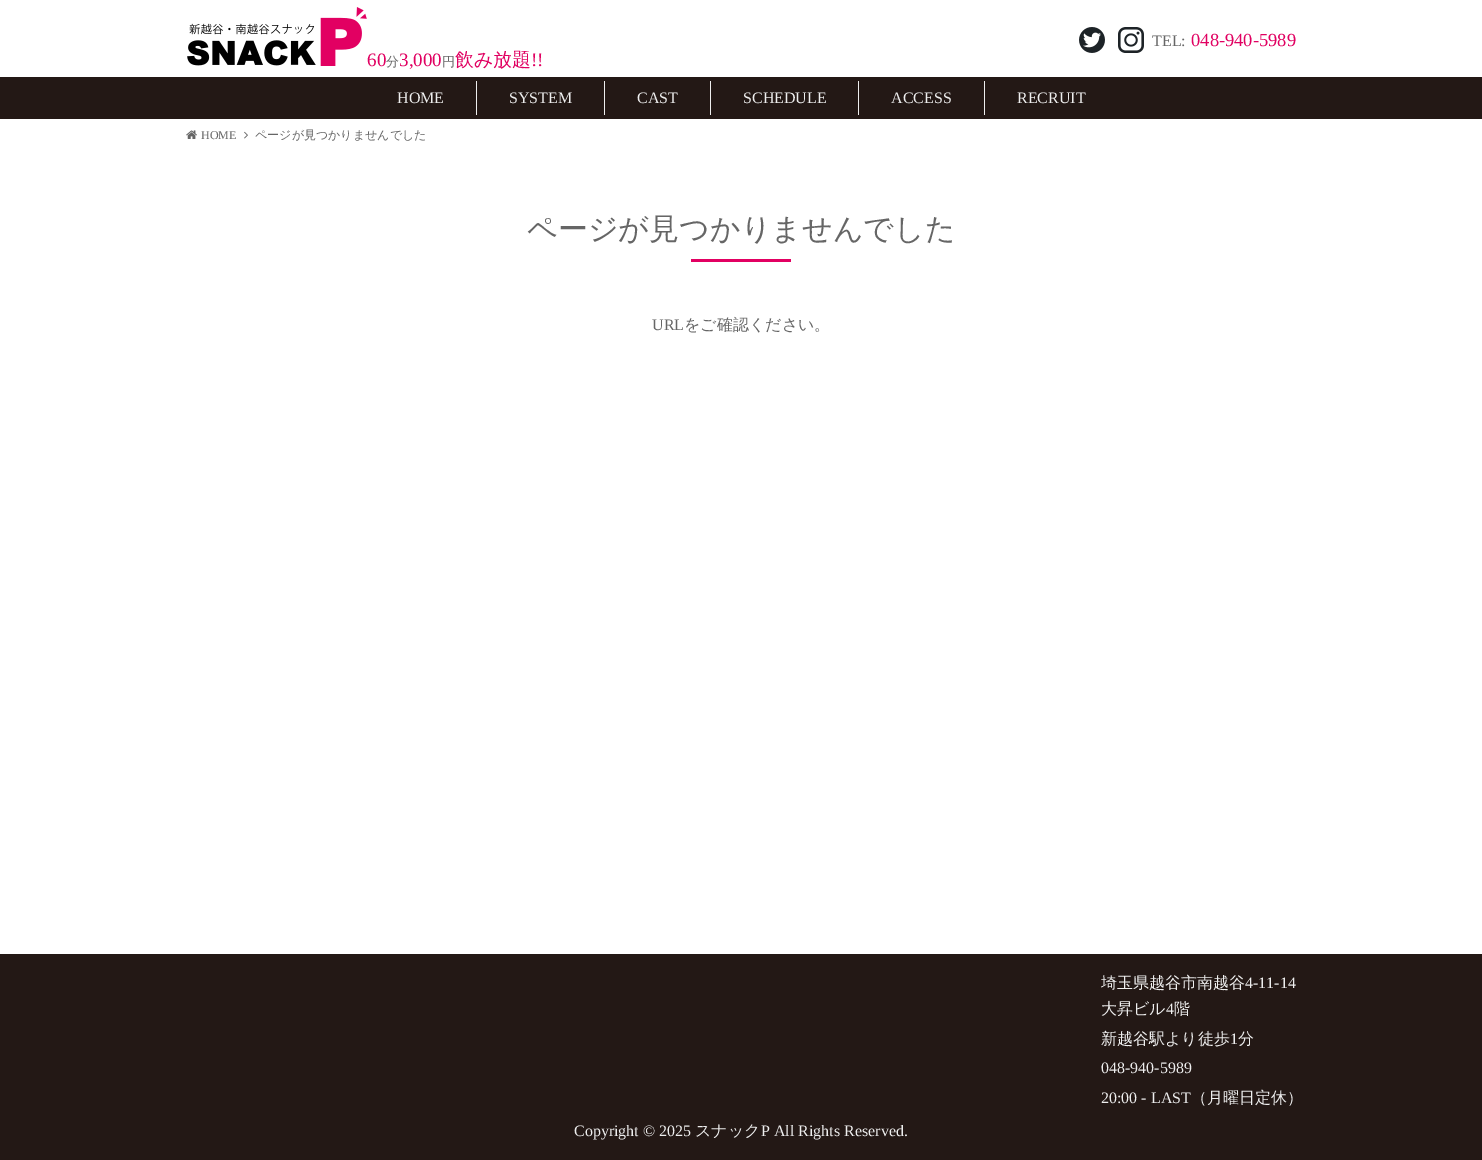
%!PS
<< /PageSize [1482 1160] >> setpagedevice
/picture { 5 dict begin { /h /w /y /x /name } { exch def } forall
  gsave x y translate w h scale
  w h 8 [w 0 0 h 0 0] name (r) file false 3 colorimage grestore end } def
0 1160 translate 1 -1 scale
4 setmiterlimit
1 setgray
0 0 1482 1160 rectfill
(img1.rgb) 1079 27 26 26 picture
(img2.rgb) 1118 27 26 26 picture
/LiberationSerif-Regular [16 0 0 -16 0 0] selectfont
0.4 setgray
1152 46 moveto (TEL:) show
/LiberationSerif-Regular [18.5 0 0 -18.5 0 0] selectfont
0.882 0 0.38 setrgbcolor
1191 46 moveto (048-940-5989) show
(img3.rgb) 187 7 180 59 picture
/LiberationSerif-Regular [19 0 0 -19 0 0] selectfont
367 66 moveto (60) show
/WenQuanYiZenHei-Medium [13 0 0 -13 0 0] selectfont
0.4 setgray
386 66 moveto (分) show
/LiberationSerif-Regular [19 0 0 -19 0 0] selectfont
0.882 0 0.38 setrgbcolor
399 66 moveto (3,000) show
/WenQuanYiZenHei-Medium [13 0 0 -13 0 0] selectfont
0.4 setgray
442 66 moveto (円) show
/WenQuanYiZenHei-Medium [19 0 0 -19 0 0] selectfont
0.882 0 0.38 setrgbcolor
455 66 moveto (飲み放題) show
/LiberationSerif-Regular [19 0 0 -19 0 0] selectfont
531 66 moveto (!!) show
0.137 0.094 0.082 setrgbcolor
0 77 1482 42 rectfill
0.933 setgray
476 81 1 34 rectfill
/LiberationSerif-Regular [16 0 0 -16 0 0] selectfont
397 103 moveto (HOME) show
604 81 1 34 rectfill
509 103 moveto (SYSTEM) show
710 81 1 34 rectfill
637 103 moveto (CAST) show
858 81 1 34 rectfill
743 103 moveto (SCHEDULE) show
984 81 1 34 rectfill
891 103 moveto (ACCESS) show
1017 103 moveto (RECRUIT) show
(img4.rgb) 186 130 11 9 picture
/LiberationSerif-Regular [12 0 0 -12 0 0] selectfont
0.4 setgray
201 139 moveto (HOME) show
(img5.rgb) 244 131 4 8 picture
/WenQuanYiZenHei-Medium [12 0 0 -12 0 0] selectfont
255 139 moveto (ページが見つかりませんでした) show
/WenQuanYiZenHei-Medium [30 0 0 -30 0 0] selectfont
527 239 moveto (ページが見つかりませんでした) show
0.886 0 0.384 setrgbcolor
691 259 100 3 rectfill
/LiberationSerif-Regular [16 0 0 -16 0 0] selectfont
0.4 setgray
652 330 moveto (URL) show
/WenQuanYiZenHei-Medium [16 0 0 -16 0 0] selectfont
684 330 moveto (をご確認ください。) show
0.137 0.094 0.082 setrgbcolor
0 954 1482 206 rectfill
0.933 setgray
1101 988 moveto (埼玉県越谷市南越谷) show
/LiberationSerif-Regular [16 0 0 -16 0 0] selectfont
1245 988 moveto (4-11-14) show
/WenQuanYiZenHei-Medium [16 0 0 -16 0 0] selectfont
1101 1014 moveto (大昇ビル) show
/LiberationSerif-Regular [16 0 0 -16 0 0] selectfont
1166 1014 moveto (4) show
/WenQuanYiZenHei-Medium [16 0 0 -16 0 0] selectfont
1174 1014 moveto (階) show
1101 1044 moveto (新越谷駅より徒歩) show
/LiberationSerif-Regular [16 0 0 -16 0 0] selectfont
1230 1044 moveto (1) show
/WenQuanYiZenHei-Medium [16 0 0 -16 0 0] selectfont
1238 1044 moveto (分) show
/LiberationSerif-Regular [16 0 0 -16 0 0] selectfont
1101 1073 moveto (048-940-5989) show
1101 1103 moveto (20:00 - LAST) show
/WenQuanYiZenHei-Medium [16 0 0 -16 0 0] selectfont
1191 1103 moveto (（月曜日定休）) show
/LiberationSerif-Regular [16 0 0 -16 0 0] selectfont
574 1136 moveto (Copyright © 2025) show
/WenQuanYiZenHei-Medium [16 0 0 -16 0 0] selectfont
695 1136 moveto (スナック) show
/LiberationSerif-Regular [16 0 0 -16 0 0] selectfont
761 1136 moveto (P All Rights Reserved.) show
showpage
